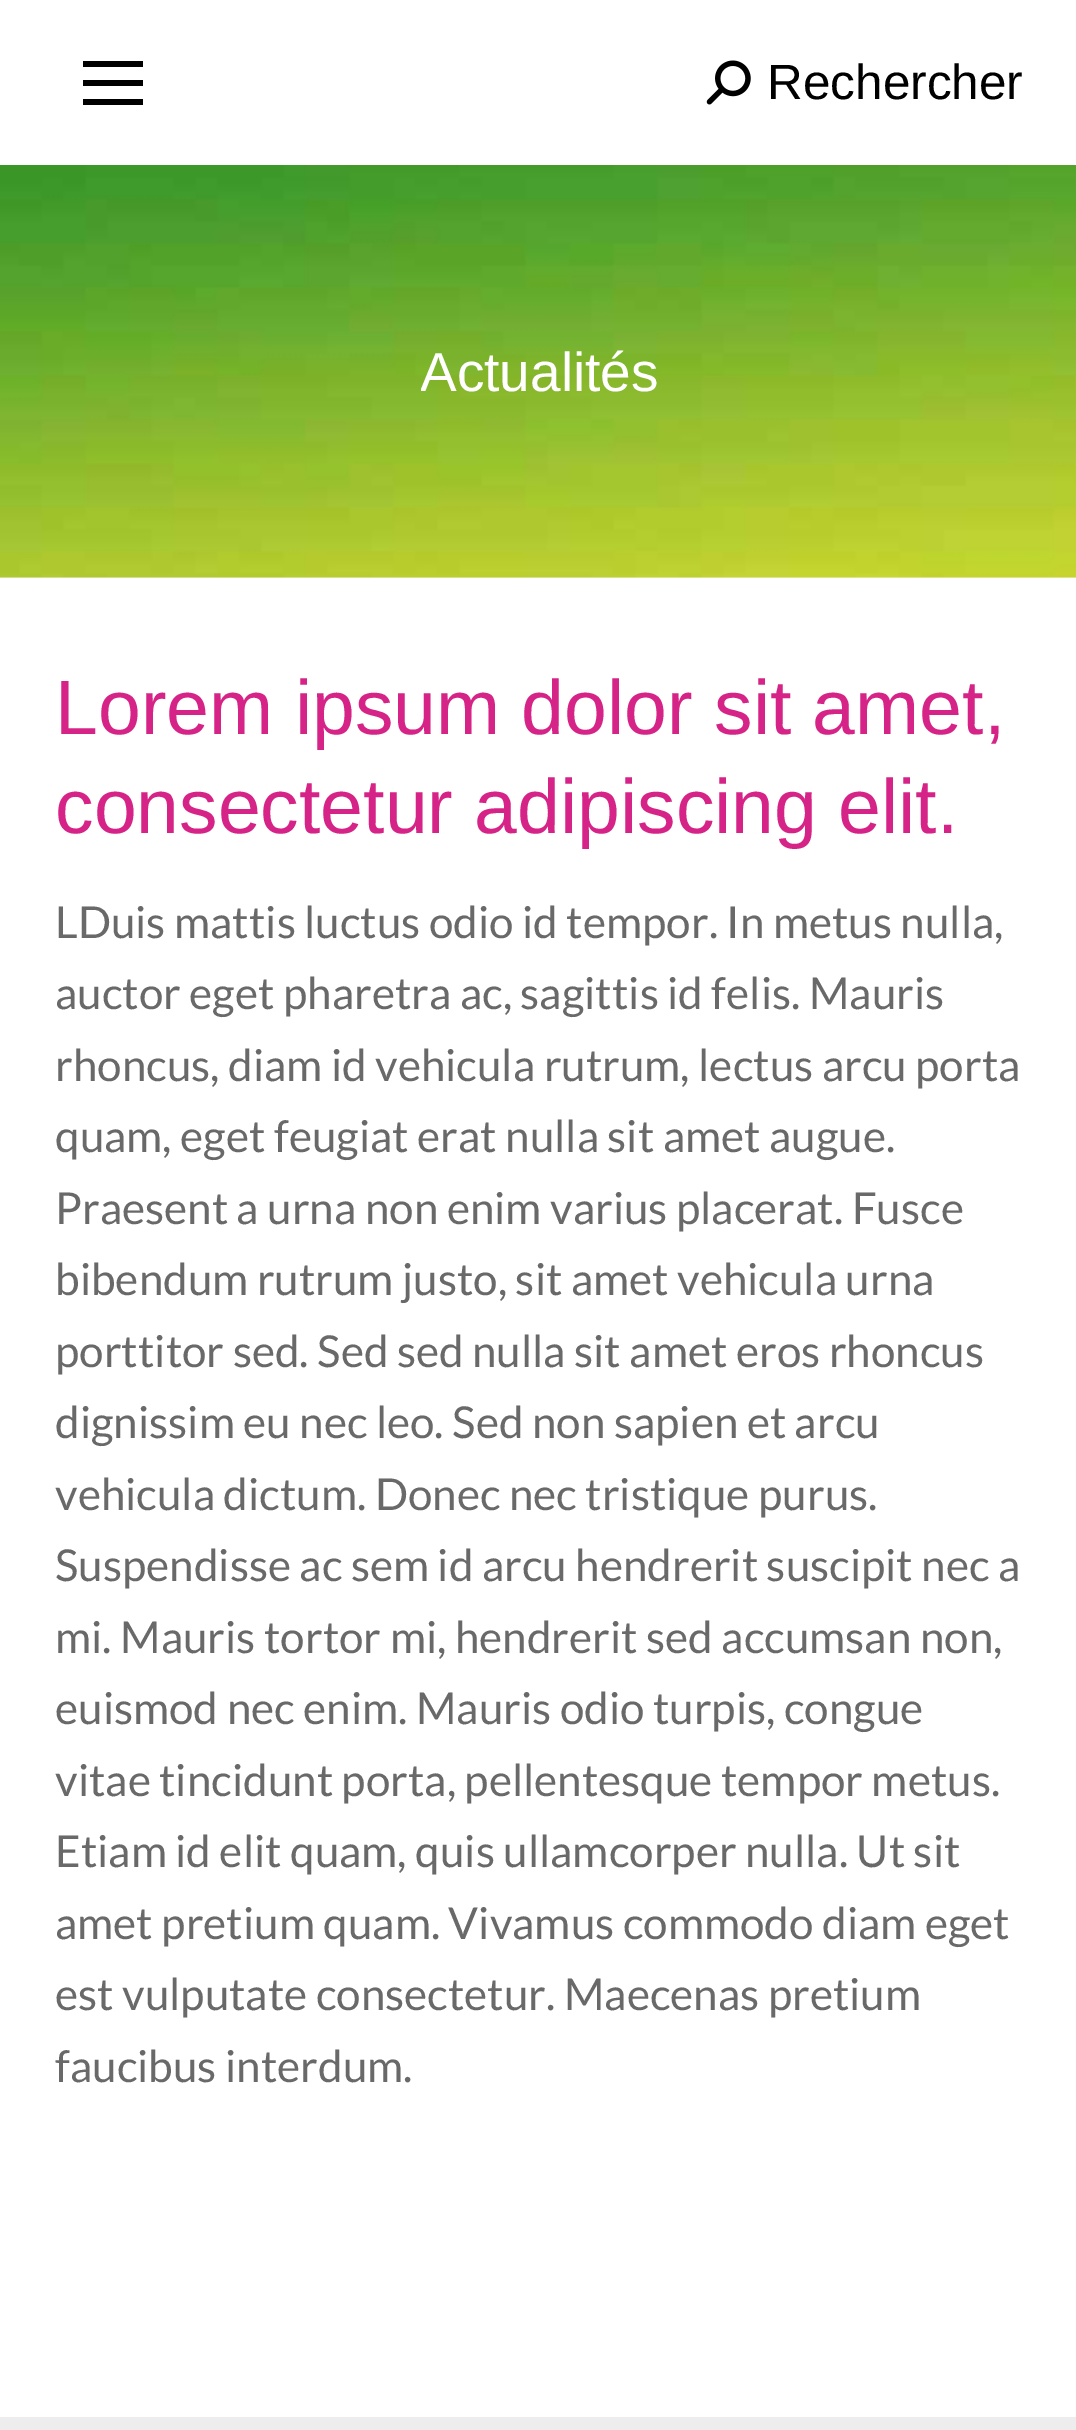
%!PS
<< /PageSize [1076 2430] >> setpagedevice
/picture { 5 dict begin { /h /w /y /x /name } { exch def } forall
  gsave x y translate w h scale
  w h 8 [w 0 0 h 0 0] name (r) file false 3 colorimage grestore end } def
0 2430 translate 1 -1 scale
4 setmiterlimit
1 setgray
0 0 1076 2430 rectfill
0 setgray
83 61 60 6 rectfill
83 80 60 6 rectfill
83 99 60 6 rectfill
(img1.rgb) 706 60 45 45 picture
/LiberationSans-Regular [49.5 0 0 -49.5 0 0] selectfont
767 99 moveto (Rechercher) show
0.957 setgray
0 577 1076 1 rectfill
(img2.rgb) 0 165 1076 413 picture
gsave
421 330 236 83 rectclip
/LiberationSans-Regular [55 0 0 -55 0 0] selectfont
1 setgray
420 391 moveto (Actualités) show
grestore
/LiberationSans-Regular [77 0 0 -77 0 0] selectfont
0.839 0.137 0.529 setrgbcolor
55 734 moveto (Lorem ipsum dolor sit amet,) show
55 833 moveto (consectetur adipiscing elit.) show
/Lato-Regular [44 0 0 -44 0 0] selectfont
0.412 setgray
55 938 moveto (LDuis mattis luctus odio id tempor. In metus nulla,) show
55 1009 moveto (auctor eget pharetra ac, sagittis id felis. Mauris) show
55 1081 moveto (rhoncus, diam id vehicula rutrum, lectus arcu porta) show
55 1152 moveto (quam, eget feugiat erat nulla sit amet augue.) show
55 1224 moveto (Praesent a urna non enim varius placerat. Fusce) show
55 1295 moveto (bibendum rutrum justo, sit amet vehicula urna) show
55 1367 moveto (porttitor sed. Sed sed nulla sit amet eros rhoncus) show
55 1438 moveto (dignissim eu nec leo. Sed non sapien et arcu) show
55 1510 moveto (vehicula dictum. Donec nec tristique purus.) show
55 1581 moveto (Suspendisse ac sem id arcu hendrerit suscipit nec a) show
55 1653 moveto (mi. Mauris tortor mi, hendrerit sed accumsan non,) show
55 1724 moveto (euismod nec enim. Mauris odio turpis, congue) show
55 1796 moveto (vitae tincidunt porta, pellentesque tempor metus.) show
55 1867 moveto (Etiam id elit quam, quis ullamcorper nulla. Ut sit) show
55 1939 moveto (amet pretium quam. Vivamus commodo diam eget) show
55 2010 moveto (est vulputate consectetur. Maecenas pretium) show
55 2082 moveto (faucibus interdum.) show
0.929 setgray
0 2417 1076 13 rectfill
showpage
